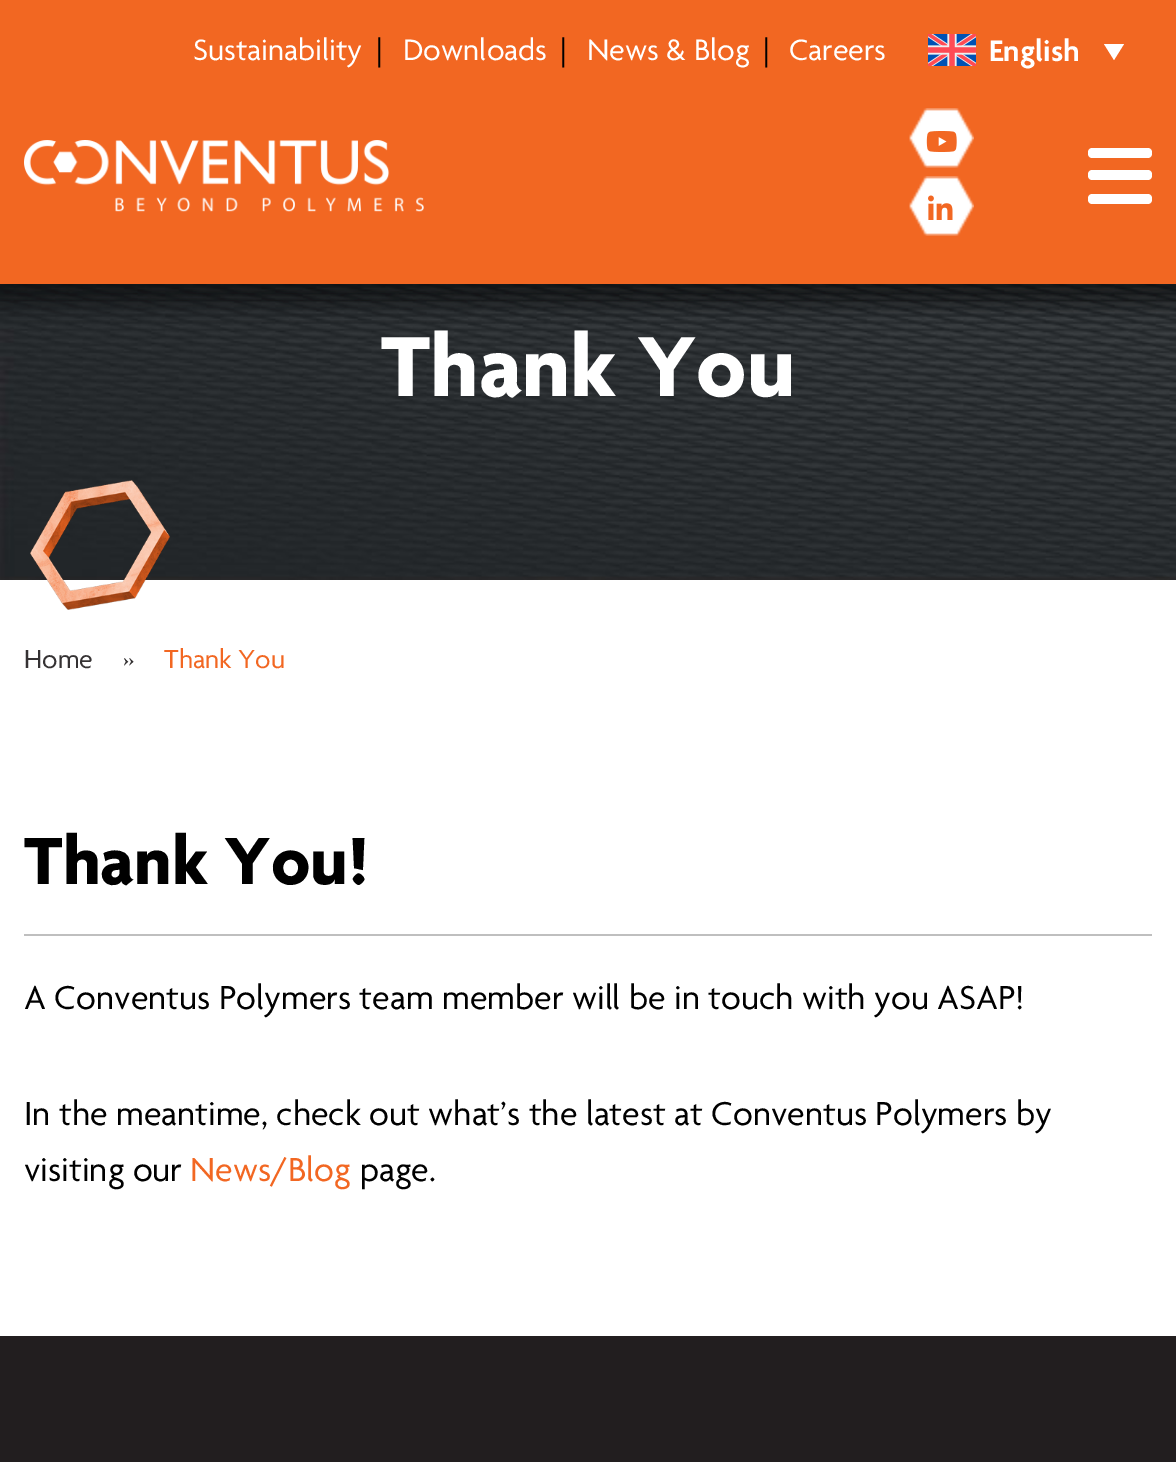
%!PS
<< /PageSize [1176 1462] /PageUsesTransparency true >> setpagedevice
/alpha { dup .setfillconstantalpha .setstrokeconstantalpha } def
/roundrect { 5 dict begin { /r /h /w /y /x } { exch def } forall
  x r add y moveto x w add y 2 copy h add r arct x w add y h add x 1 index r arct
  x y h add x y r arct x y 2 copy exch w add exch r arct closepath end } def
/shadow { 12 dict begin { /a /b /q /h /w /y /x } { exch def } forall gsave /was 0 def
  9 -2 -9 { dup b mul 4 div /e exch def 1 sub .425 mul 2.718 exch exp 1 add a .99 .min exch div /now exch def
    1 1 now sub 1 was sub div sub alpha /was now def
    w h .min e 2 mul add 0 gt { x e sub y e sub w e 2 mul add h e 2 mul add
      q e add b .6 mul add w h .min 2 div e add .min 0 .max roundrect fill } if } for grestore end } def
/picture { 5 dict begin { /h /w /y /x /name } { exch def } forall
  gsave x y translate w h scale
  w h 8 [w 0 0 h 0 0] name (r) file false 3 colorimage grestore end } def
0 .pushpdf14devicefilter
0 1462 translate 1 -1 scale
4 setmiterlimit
1 setgray
0 0 1176 1462 rectfill
(img6.rgb) 0 284 1176 296 picture
0 setgray
-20 -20 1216 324 0 10 0.5 shadow
0.949 0.404 0.133 setrgbcolor
0 0 1176 284 rectfill
/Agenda-Regular [32 0 0 -32 0 0] selectfont
1 setgray
193 60 moveto (Sustainability) show
0 setgray
376 60 moveto (|) show
1 setgray
403 60 moveto (Downloads) show
0 setgray
560 60 moveto (|) show
1 setgray
587 60 moveto (News & Blog) show
0 setgray
763 60 moveto (|) show
1 setgray
789 60 moveto (Careers) show
(img1.rgb) 928 34 48 32 picture
/Agenda-SemiBold [32 0 0 -32 0 0] selectfont
989 61 moveto (English) show
newpath 1104 44 moveto 1124 44 lineto 1114 60 lineto closepath fill
(img2.rgb) 24 140 400 72 picture
(img3.rgb) 909 108 65 60 picture
(img4.rgb) 926 131 31 21 picture
(img3.rgb) 909 176 65 60 picture
(img5.rgb) 928 195 25 25 picture
newpath 1092 148 moveto 1120 148 lineto 1120 158 lineto 1092 158 lineto 1090 158 1088 156 1088 154 curveto 1088 152 lineto 1088 150 1090 148 1092 148 curveto closepath fill
newpath 1120 148 moveto 1148 148 lineto 1150 148 1152 150 1152 152 curveto 1152 154 lineto 1152 156 1150 158 1148 158 curveto 1120 158 lineto closepath fill
newpath 1092 170 moveto 1120 170 lineto 1120 180 lineto 1092 180 lineto 1090 180 1088 178 1088 176 curveto 1088 174 lineto 1088 172 1090 170 1092 170 curveto closepath fill
newpath 1120 170 moveto 1148 170 lineto 1150 170 1152 172 1152 174 curveto 1152 176 lineto 1152 178 1150 180 1148 180 curveto 1120 180 lineto closepath fill
newpath 1092 194 moveto 1120 194 lineto 1120 204 lineto 1092 204 lineto 1090 204 1088 202 1088 200 curveto 1088 198 lineto 1088 196 1090 194 1092 194 curveto closepath fill
newpath 1120 194 moveto 1148 194 lineto 1150 194 1152 196 1152 198 curveto 1152 200 lineto 1152 202 1150 204 1148 204 curveto 1120 204 lineto closepath fill
/Agenda-Bold [92 0 0 -92 0 0] selectfont
381 396 moveto (Thank You) show
(img7.rgb) 30 480 140 130 picture
/Agenda-Regular [28 0 0 -28 0 0] selectfont
0.208 0.196 0.2 setrgbcolor
24 668 moveto (Home) show
123 668 moveto (») show
0.949 0.404 0.133 setrgbcolor
164 668 moveto (Thank You) show
/Agenda-Bold [72 0 0 -72 0 0] selectfont
0 setgray
24 884 moveto (Thank You!) show
0.749 setgray
24 934 1128 2 rectfill
/Agenda-Regular [36 0 0 -36 0 0] selectfont
0 setgray
24 1009 moveto (A Conventus Polymers team member will be in touch with you ASAP!) show
24 1125 moveto (In the meantime, check out what’s the latest at Conventus Polymers by) show
24 1181 moveto (visiting our) show
0.949 0.404 0.133 setrgbcolor
190 1181 moveto (News/Blog) show
0 setgray
360 1181 moveto (page.) show
0.133 0.118 0.122 setrgbcolor
0 1336 1176 126 rectfill
.poppdf14devicefilter showpage
